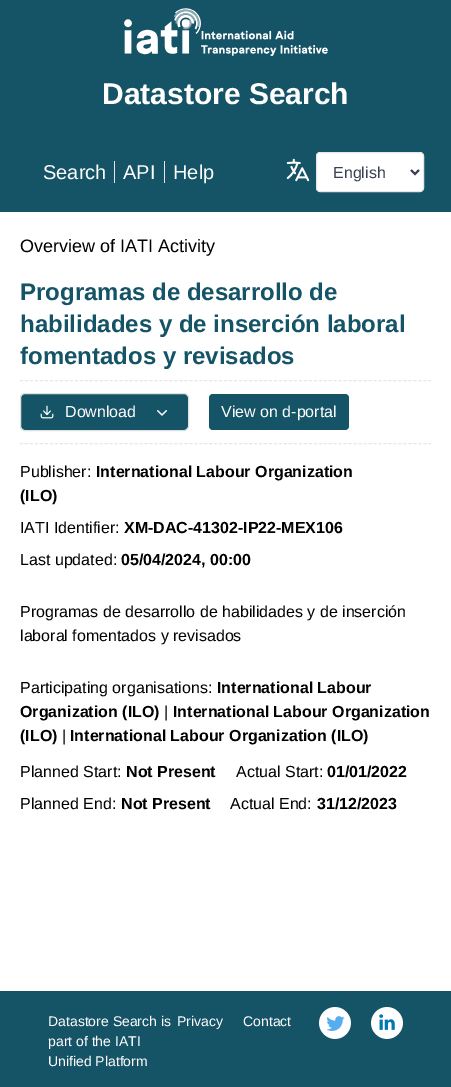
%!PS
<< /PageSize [451 1087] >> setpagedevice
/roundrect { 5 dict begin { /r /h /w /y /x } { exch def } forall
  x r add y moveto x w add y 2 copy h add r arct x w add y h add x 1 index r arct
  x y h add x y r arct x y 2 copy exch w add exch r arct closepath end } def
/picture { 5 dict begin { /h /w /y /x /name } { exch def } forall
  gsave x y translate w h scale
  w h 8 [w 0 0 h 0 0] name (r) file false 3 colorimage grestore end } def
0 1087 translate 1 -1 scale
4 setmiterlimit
1 setgray
0 0 451 1087 rectfill
0.082 0.325 0.4 setrgbcolor
0 0 451 212 rectfill
(img1.rgb) 124 8 204 48 picture
/LiberationSans-Bold [30 0 0 -30 0 0] selectfont
1 setgray
102 104 moveto (Datastore Search) show
/LiberationSans-Regular [20 0 0 -20 0 0] selectfont
43 179 moveto (Search) show
123 179 moveto (API) show
0.898 0.906 0.922 setrgbcolor
114 161 1 22 rectfill
1 setgray
173 179 moveto (Help) show
0.898 0.906 0.922 setrgbcolor
164 161 1 22 rectfill
(img2.rgb) 286 158 24 24 picture
1 setgray
316.5 152.5 107 39 3.5 roundrect gsave fill grestore
0.898 0.906 0.922 setrgbcolor
stroke
0.216 0.255 0.318 setrgbcolor
2 setlinewidth
newpath 411 170 moveto 415 174 lineto 419 170 lineto stroke
/LiberationSans-Regular [16 0 0 -16 0 0] selectfont
333 178 moveto (English) show
/LiberationSans-Regular [18 0 0 -18 0 0] selectfont
0 setgray
20 252 moveto (Overview of IATI Activity) show
0.898 0.906 0.922 setrgbcolor
1 setlinewidth
[3 1.98] 0 setdash
newpath 20 380.5 moveto 431 380.5 lineto stroke
/LiberationSans-Bold [24 0 0 -24 0 0] selectfont
0.082 0.325 0.4 setrgbcolor
20 300 moveto (Programas de desarrollo de) show
20 332 moveto (habilidades y de inserción laboral) show
20 364 moveto (fomentados y revisados) show
0.898 0.906 0.922 setrgbcolor
newpath 20 443.5 moveto 431 443.5 lineto stroke
0.082 0.325 0.4 setrgbcolor
20.5 393.5 168 37 4.5 roundrect gsave fill grestore
0.878 0.882 0.886 setrgbcolor
[] 0 setdash
stroke
(img3.rgb) 40 405 14 14 picture
/LiberationSans-Regular [16 0 0 -16 0 0] selectfont
1 setgray
65 417 moveto (Download) show
(img4.rgb) 157 410 10 6 picture
0.082 0.325 0.4 setrgbcolor
209 394 140 36 4 roundrect fill
1 setgray
221 417 moveto (View on d-portal) show
0 setgray
20 477 moveto (Publisher:) show
/LiberationSans-Bold [16 0 0 -16 0 0] selectfont
96 477 moveto (International Labour Organization) show
20 501 moveto (\(ILO\)) show
/LiberationSans-Regular [16 0 0 -16 0 0] selectfont
20 533 moveto (IATI Identifier:) show
/LiberationSans-Bold [16 0 0 -16 0 0] selectfont
124 533 moveto (XM-DAC-41302-IP22-MEX106) show
/LiberationSans-Regular [16 0 0 -16 0 0] selectfont
20 565 moveto (Last updated:) show
/LiberationSans-Bold [16 0 0 -16 0 0] selectfont
121 565 moveto (05/04/2024, 00:00) show
/LiberationSans-Regular [16 0 0 -16 0 0] selectfont
20 617 moveto (Programas de desarrollo de habilidades y de inserción) show
20 641 moveto (laboral fomentados y revisados) show
20 693 moveto (Participating organisations:) show
/LiberationSans-Bold [16 0 0 -16 0 0] selectfont
217 693 moveto (International Labour) show
20 717 moveto (Organization \(ILO\)) show
/LiberationSans-Regular [16 0 0 -16 0 0] selectfont
164 717 moveto (|) show
/LiberationSans-Bold [16 0 0 -16 0 0] selectfont
173 717 moveto (International Labour Organization) show
20 741 moveto (\(ILO\)) show
/LiberationSans-Regular [16 0 0 -16 0 0] selectfont
62 741 moveto (|) show
/LiberationSans-Bold [16 0 0 -16 0 0] selectfont
70 741 moveto (International Labour Organization \(ILO\)) show
/LiberationSans-Regular [16 0 0 -16 0 0] selectfont
20 777 moveto (Planned Start:) show
/LiberationSans-Bold [16 0 0 -16 0 0] selectfont
126 777 moveto (Not Present) show
/LiberationSans-Regular [16 0 0 -16 0 0] selectfont
236 777 moveto (Actual Start:) show
/LiberationSans-Bold [16 0 0 -16 0 0] selectfont
327 777 moveto (01/01/2022) show
/LiberationSans-Regular [16 0 0 -16 0 0] selectfont
20 809 moveto (Planned End:) show
/LiberationSans-Bold [16 0 0 -16 0 0] selectfont
121 809 moveto (Not Present) show
/LiberationSans-Regular [16 0 0 -16 0 0] selectfont
230 809 moveto (Actual End:) show
/LiberationSans-Bold [16 0 0 -16 0 0] selectfont
317 809 moveto (31/12/2023) show
0.082 0.325 0.4 setrgbcolor
0 991 451 96 rectfill
/LiberationSans-Regular [14 0 0 -14 0 0] selectfont
1 setgray
48 1026 moveto (Datastore Search is) show
48 1046 moveto (part of the IATI) show
48 1066 moveto (Unified Platform) show
177 1026 moveto (Privacy) show
243 1026 moveto (Contact) show
(img5.rgb) 319 1007 32 32 picture
(img6.rgb) 371 1007 32 32 picture
showpage
